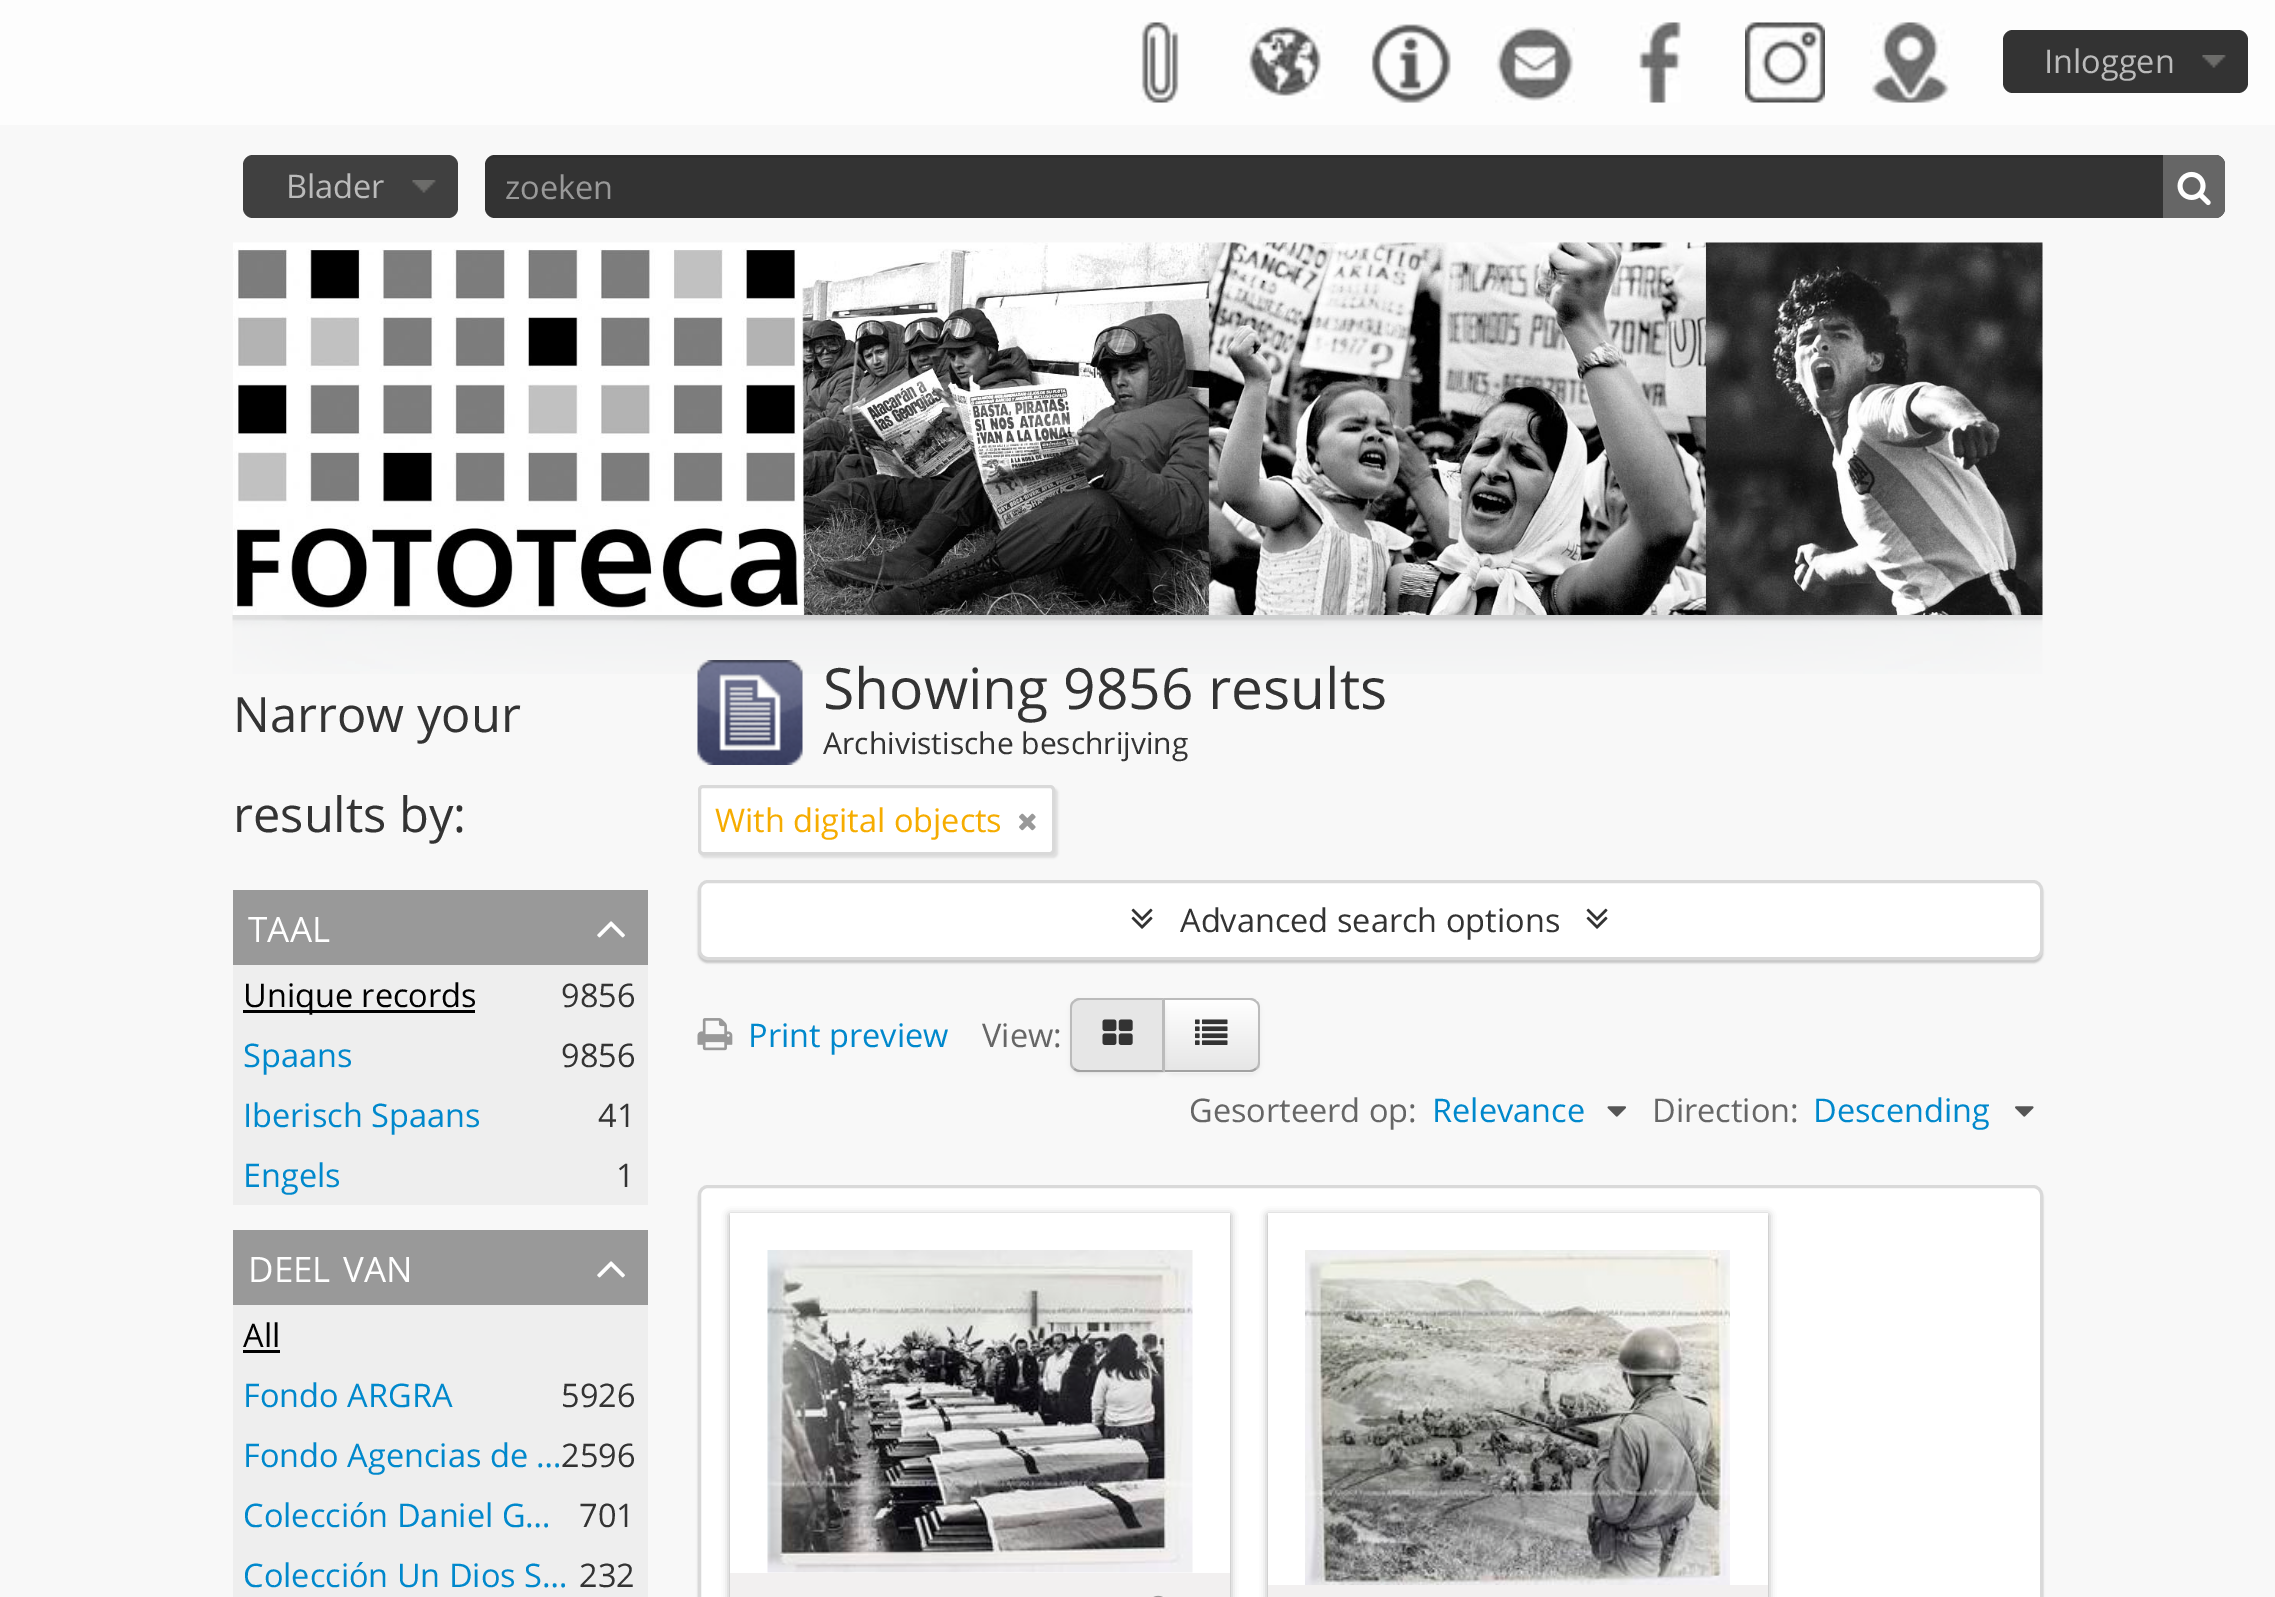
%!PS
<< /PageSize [2275 1597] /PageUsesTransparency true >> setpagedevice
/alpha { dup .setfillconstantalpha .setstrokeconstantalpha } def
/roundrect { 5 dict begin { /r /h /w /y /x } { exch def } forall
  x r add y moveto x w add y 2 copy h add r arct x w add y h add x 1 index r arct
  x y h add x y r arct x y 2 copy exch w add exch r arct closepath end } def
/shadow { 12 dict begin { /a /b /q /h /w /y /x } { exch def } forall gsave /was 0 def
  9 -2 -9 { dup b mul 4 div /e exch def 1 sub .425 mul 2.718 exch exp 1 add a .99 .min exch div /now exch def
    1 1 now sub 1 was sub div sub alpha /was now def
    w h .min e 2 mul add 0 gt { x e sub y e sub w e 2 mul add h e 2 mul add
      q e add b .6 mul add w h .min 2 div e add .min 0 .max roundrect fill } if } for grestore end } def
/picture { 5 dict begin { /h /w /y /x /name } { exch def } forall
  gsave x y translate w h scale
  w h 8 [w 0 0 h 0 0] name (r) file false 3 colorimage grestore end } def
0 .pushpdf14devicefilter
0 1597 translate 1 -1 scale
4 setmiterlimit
0.973 setgray
0 0 2275 1597 rectfill
0.992 setgray
0 0 2275 125 rectfill
(img1.rgb) 1140 22 39 81 picture
(img2.rgb) 1245 23 80 76 picture
(img3.rgb) 1371 24 80 79 picture
(img4.rgb) 1495 26 80 77 picture
(img5.rgb) 1639 22 42 81 picture
(img6.rgb) 1745 22 80 81 picture
(img7.rgb) 1870 22 80 81 picture
0.2 setgray
2003 30 245 63 10 roundrect fill
(img8.rgb) 2202 55 24 13 picture
/OpenSans-Regular [32.5 0 0 -32.5 0 0] selectfont
0.733 setgray
2044 73 moveto (Inloggen) show
0.251 setgray
243 155 215 63 10 roundrect fill
(img9.rgb) 412 180 24 13 picture
0.733 setgray
286 198 moveto (Blader) show
0.2 setgray
485 155 1740 63 10 roundrect fill
0.07 alpha
0 setgray
newpath 495 158 moveto 2215 158 lineto 2221 158 2225 162 2225 168 curveto 2225 161 2223 155 2215 155 curveto 495 155 lineto 487 155 485 161 485 168 curveto 485 162 489 158 495 158 curveto closepath fill
1 alpha
0.6 setgray
505 199 moveto (zoeken) show
0.4 setgray
newpath 2163 155 moveto 2215 155 lineto 2220.5 155 2225 159.5 2225 165 curveto 2225 208 lineto 2225 213.5 2220.5 218 2215 218 curveto 2163 218 lineto closepath fill
(img10.rgb) 2177 171 34 35 picture
(img11.rgb) 233 242 1810 373 picture
(img12.rgb) 232 615 1811 59 picture
/OpenSans-Regular [48.75 0 0 -48.75 0 0] selectfont
0.2 setgray
233 732 moveto (Narrow your) show
233 832 moveto (results by:) show
0.6 setgray
233 890 415 75 rectfill
/OpenSans-Regular [35 0 0 -35 0 0] selectfont
1 setgray
248 942 moveto (TAAL) show
(img13.rgb) 597 921 28 17 picture
0.933 setgray
233 965 415 240 rectfill
0 setgray
243 1010 232 3 rectfill
/OpenSans-Regular [32.5 0 0 -32.5 0 0] selectfont
243 1007 moveto (Unique records) show
0.2 setgray
561 1007 moveto (9856) show
0 0.533 0.8 setrgbcolor
243 1067 moveto (Spaans) show
0.2 setgray
561 1067 moveto (9856) show
0 0.533 0.8 setrgbcolor
243 1127 moveto (Iberisch Spaans) show
0.2 setgray
598 1127 moveto (41) show
0 0.533 0.8 setrgbcolor
243 1187 moveto (Engels) show
0.2 setgray
616 1187 moveto (1) show
0.6 setgray
233 1230 415 75 rectfill
/OpenSans-Regular [35 0 0 -35 0 0] selectfont
1 setgray
248 1282 moveto (DEEL) show
343 1282 moveto (VAN) show
(img13.rgb) 597 1261 28 17 picture
0.933 setgray
233 1305 415 292 rectfill
/OpenSans-Regular [32.5 0 0 -32.5 0 0] selectfont
0 setgray
243 1347 moveto (All) show
243 1350 37 3 rectfill
0 0.533 0.8 setrgbcolor
243 1407 moveto (Fondo ARGRA) show
0.2 setgray
561 1407 moveto (5926) show
0 0.533 0.8 setrgbcolor
243 1467 moveto (Fondo Agencias de …) show
0.2 setgray
561 1467 moveto (2596) show
0 0.533 0.8 setrgbcolor
243 1527 moveto (Colección Daniel G…) show
0.2 setgray
579 1527 moveto (701) show
0 0.533 0.8 setrgbcolor
243 1587 moveto (Colección Un Dios S…) show
0.2 setgray
579 1587 moveto (232) show
(img14.rgb) 697 660 106 105 picture
/OpenSans-Regular [56.9 0 0 -56.9 0 0] selectfont
823 709 moveto (Showing 9856 results) show
/OpenSans-Regular [30 0 0 -30 0 0] selectfont
823 754 moveto (Archivistische beschrijving) show
0 setgray
700 788 358 70 5 1 0.1 shadow
1 setgray
699.5 786.5 354 67 3.5 roundrect gsave fill grestore
0.851 setgray
3 setlinewidth
stroke
/OpenSans-Regular [32.5 0 0 -32.5 0 0] selectfont
0.965 0.675 0 setrgbcolor
715 832 moveto (With digital objects) show
(img15.rgb) 1019 813 17 18 picture
0 setgray
698 883 1345 80 10 1 0.2 shadow
1 setgray
699.5 881.5 1342 77 8.5 roundrect gsave fill grestore
0.851 setgray
stroke
(img16.rgb) 1131 908 22 21 picture
0.2 setgray
1180 932 moveto (Advanced search options) show
(img16.rgb) 1586 908 22 21 picture
(img17.rgb) 697 1018 36 33 picture
0 0.533 0.8 setrgbcolor
748 1047 moveto (Print preview) show
0.4 setgray
982 1047 moveto (View:) show
0 setgray
1163 1000 97 75 10 2.5 0.05 shadow
0.961 setgray
newpath 1163 998 moveto 1250 998 lineto 1255.5 998 1260 1002.5 1260 1008 curveto 1260 1063 lineto 1260 1068.5 1255.5 1073 1250 1073 curveto 1163 1073 lineto closepath fill
gsave
newpath 1163 998 moveto 1250 998 lineto 1255.5 998 1260 1002.5 1260 1008 curveto 1260 1063 lineto 1260 1068.5 1255.5 1073 1250 1073 curveto 1163 1073 lineto closepath clip newpath
gsave newpath 1165 1000 moveto 1260 1000 lineto 1260 1070 lineto 1165 1070 lineto closepath clip newpath
<< /ShadingType 2 /ColorSpace /DeviceRGB /Coords [1211 1000 1211 1070] /Extend [true true] /Function << /FunctionType 2 /Domain [0 1] /C0 [1 1 1] /C1 [0.902 0.902 0.902] /N 1 >> >> shfill grestore
grestore
0.733 setgray
newpath 1165 1000 moveto 1250 1000 lineto 1252 1000 1254 1001 1255 1002 curveto 1257 1001 lineto 1255 999 1253 998 1250 998 curveto 1163 998 lineto closepath fill
newpath 1257 1001 moveto 1259 1002 1260 1005 1260 1008 curveto 1260 1062 lineto 1260 1065 1259 1068 1257 1069 curveto 1255 1068 lineto 1257 1067 1258 1065 1258 1062 curveto 1258 1008 lineto 1258 1005 1257 1003 1255 1002 curveto closepath fill
0.635 setgray
newpath 1257 1069 moveto 1255 1071 1253 1072 1250 1072 curveto 1163 1072 lineto 1165 1070 lineto 1250 1070 lineto 1252 1070 1254 1069 1255 1068 curveto closepath fill
0 setgray
1070 1000 95 75 10 2.5 0.05 shadow
0.902 setgray
newpath 1080 998 moveto 1165 998 lineto 1165 1073 lineto 1080 1073 lineto 1074.5 1073 1070 1068.5 1070 1063 curveto 1070 1008 lineto 1070 1002.5 1074.5 998 1080 998 curveto closepath fill
0.733 setgray
newpath 1080 998 moveto 1077 998 1075 999 1073 1001 curveto 1075 1002 lineto 1076 1001 1078 1000 1080 1000 curveto 1162 1000 lineto 1164 998 lineto closepath fill
newpath 1165 1072 moveto 1165 998 lineto 1164 998 lineto 1162 1000 lineto 1162 1070 lineto closepath fill
0.635 setgray
newpath 1164 1072 moveto 1080 1072 lineto 1077 1072 1075 1071 1073 1069 curveto 1075 1068 lineto 1076 1069 1078 1070 1080 1070 curveto 1162 1070 lineto closepath fill
0.733 setgray
newpath 1070 1008 moveto 1070 1062 lineto 1070 1065 1071 1068 1073 1069 curveto 1075 1068 lineto 1073 1067 1072 1065 1072 1062 curveto 1072 1008 lineto 1072 1005 1073 1003 1075 1002 curveto 1073 1001 lineto 1071 1002 1070 1005 1070 1008 curveto closepath fill
(img18.rgb) 1102 1019 31 26 picture
(img19.rgb) 1195 1019 33 26 picture
0.4 setgray
1189 1122 moveto (Gesorteerd op:) show
0 0.533 0.8 setrgbcolor
1432 1122 moveto (Relevance) show
(img20.rgb) 1607 1106 19 11 picture
0.4 setgray
1652 1122 moveto (Direction:) show
0 0.533 0.8 setrgbcolor
1813 1122 moveto (Descending) show
(img21.rgb) 2015 1106 19 11 picture
0 setgray
698 1188 1345 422 10 1 0.2 shadow
1 setgray
699.5 1186.5 1342 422 8.5 roundrect gsave fill grestore
0.851 setgray
stroke
gsave
newpath 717 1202 moveto 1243 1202 lineto 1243 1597 lineto 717 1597 lineto closepath 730 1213 moveto 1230 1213 lineto 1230 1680 lineto 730 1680 lineto closepath eoclip newpath
0.098 setgray
730 1215 500 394 0 4 0.4 shadow
grestore
(img22.rgb) 767 1250 426 323 picture
0.949 0.941 0.941 setrgbcolor
730 1573 500 24 rectfill
(img23.rgb) 1153 1595 10 2 picture
0.098 setgray
1268 1215 500 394 0 4 0.4 shadow
1 setgray
1268 1213 500 372 rectfill
(img24.rgb) 1305 1250 425 335 picture
0.949 0.941 0.941 setrgbcolor
1268 1585 500 12 rectfill
.poppdf14devicefilter showpage
